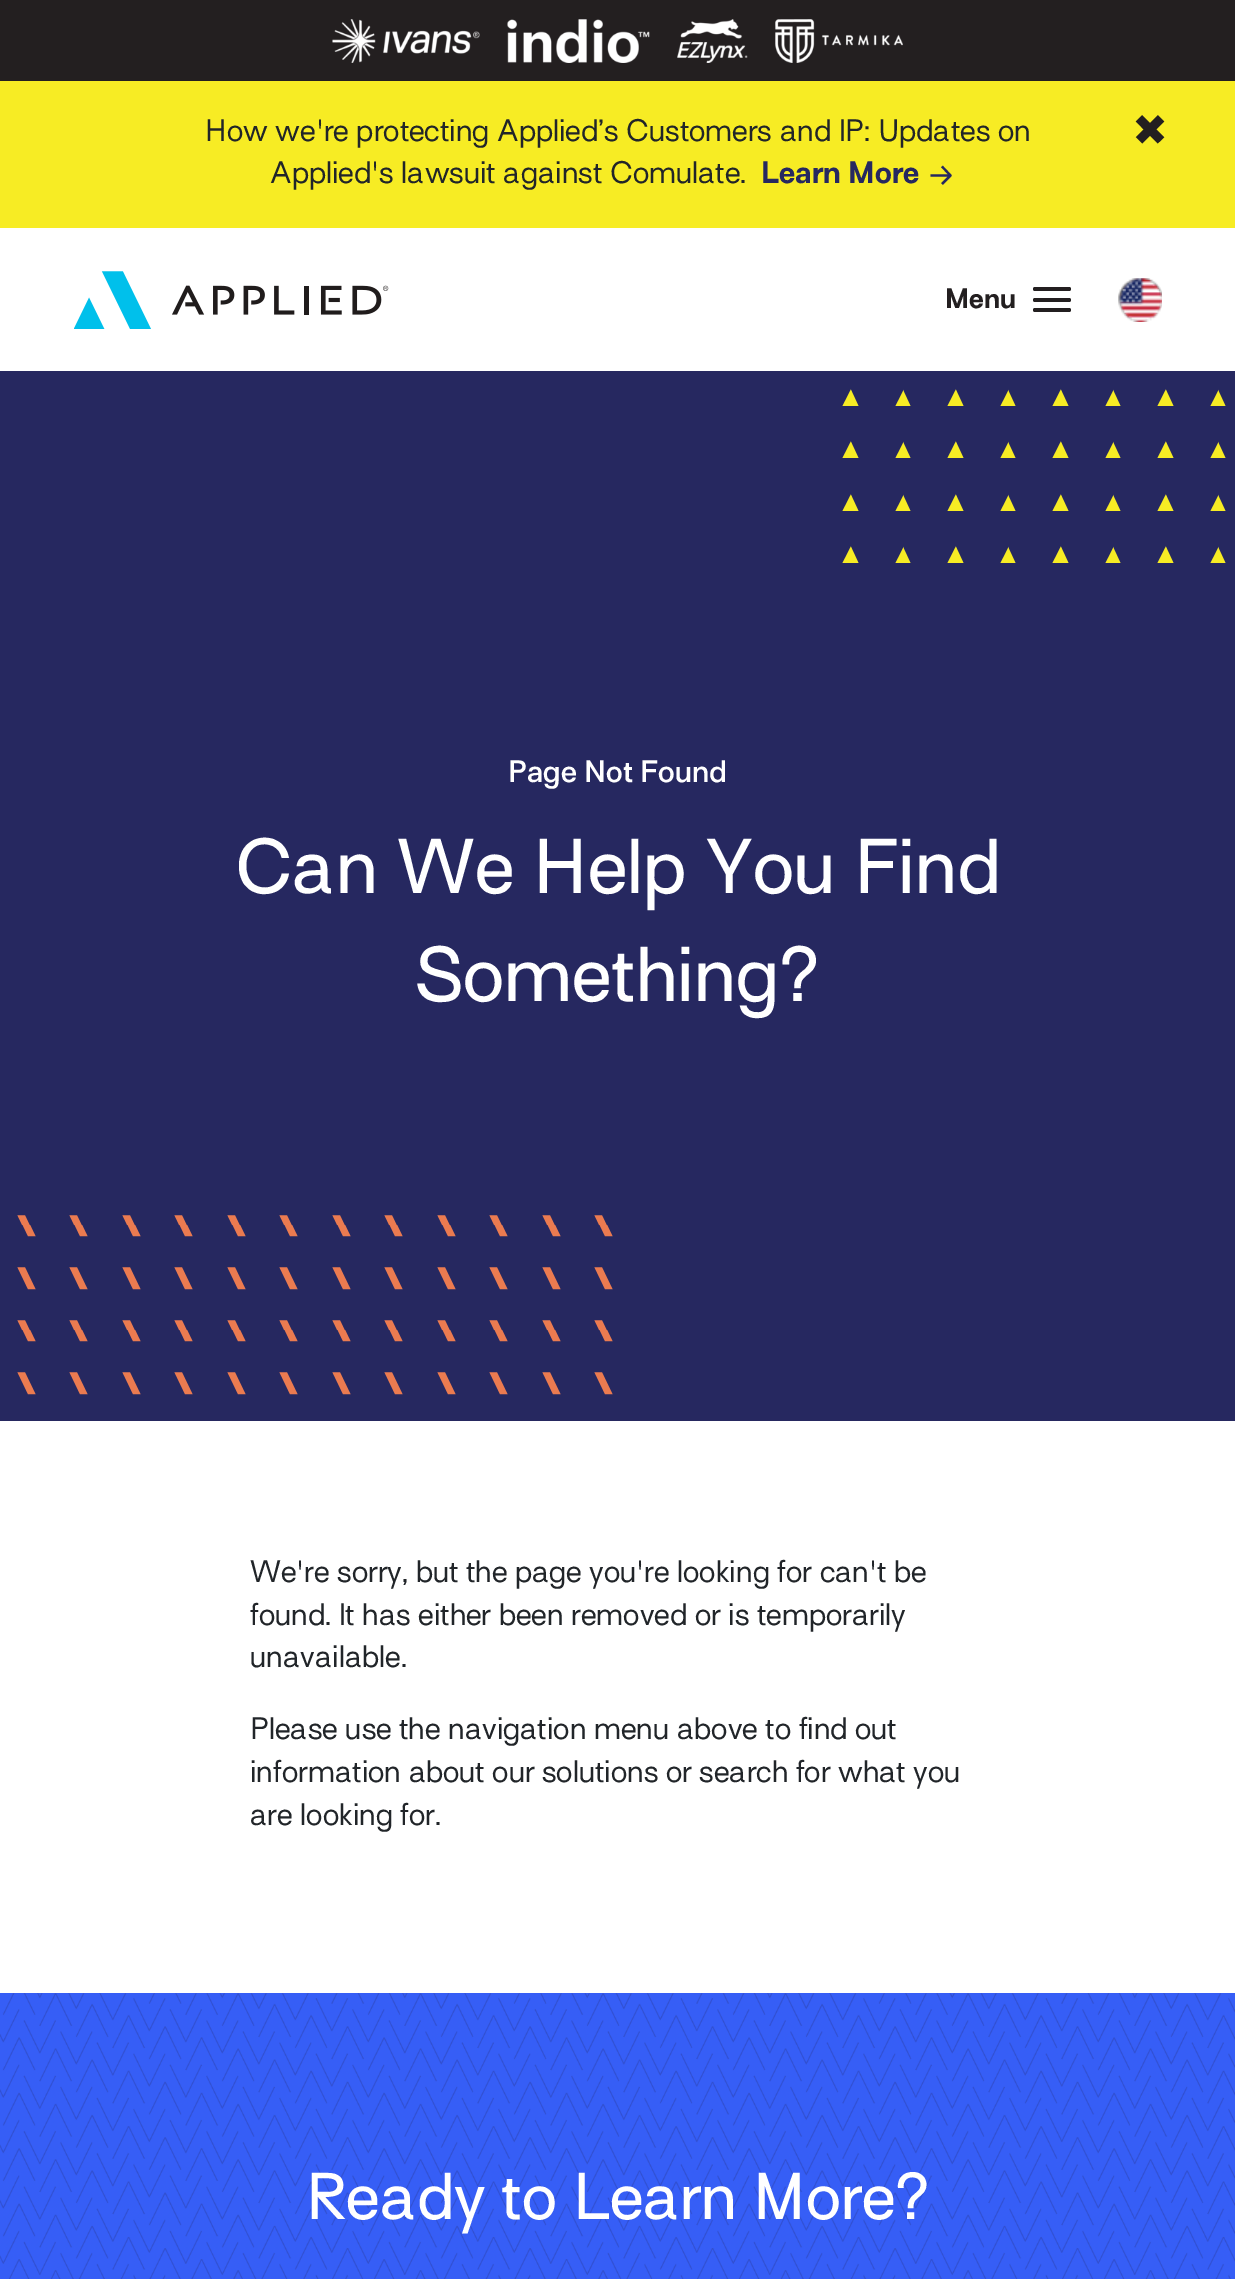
%!PS
<< /PageSize [1235 2279] >> setpagedevice
/roundrect { 5 dict begin { /r /h /w /y /x } { exch def } forall
  x r add y moveto x w add y 2 copy h add r arct x w add y h add x 1 index r arct
  x y h add x y r arct x y 2 copy exch w add exch r arct closepath end } def
/picture { 5 dict begin { /h /w /y /x /name } { exch def } forall
  gsave x y translate w h scale
  w h 8 [w 0 0 h 0 0] name (r) file false 3 colorimage grestore end } def
0 2279 translate 1 -1 scale
4 setmiterlimit
1 setgray
0 0 1235 2279 rectfill
0.137 0.122 0.125 setrgbcolor
0 0 1235 81 rectfill
(img1.rgb) 332 19 148 44 picture
(img2.rgb) 507 19 143 44 picture
(img3.rgb) 677 19 71 44 picture
(img4.rgb) 775 19 128 44 picture
0.969 0.925 0.141 setrgbcolor
0 81 1235 147 rectfill
/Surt-Light [28.6 0 0 -28.6 0 0] selectfont
0.129 0.145 0.161 setrgbcolor
205 141 moveto (How we're protecting Applied’s Customers and IP: Updates on) show
270 183 moveto (Applied's lawsuit against Comulate.) show
/Surt-Bold [28.6 0 0 -28.6 0 0] selectfont
0.149 0.157 0.376 setrgbcolor
761 183 moveto (Learn More) show
2.2 setlinewidth
1 setlinejoin
newpath 942 166.5 moveto 950.5 175.5 lineto 942 184 lineto 930.5 175.5 moveto 950.5 175.5 lineto stroke
/DejaVuSans-Regular [43 0 0 -43 0 0] selectfont
0.137 0.122 0.125 setrgbcolor
1132 145 moveto (✖) show
(img5.rgb) 74 271 315 58 picture
/Surt-Bold [26 0 0 -26 0 0] selectfont
945 308 moveto (Menu) show
1033 287 38 4 2 roundrect fill
1033 298 38 4 2 roundrect fill
1033 308 38 4 2 roundrect fill
(img6.rgb) 1118 278 44 44 picture
0.149 0.157 0.376 setrgbcolor
0 371 1235 1050 rectfill
(img7.rgb) 842 389 384 174 picture
/Surt-SemiBold [28.6 0 0 -28.6 0 0] selectfont
1 setgray
508 782 moveto (Page Not Found) show
/Surt-Regular [71.5 0 0 -71.5 0 0] selectfont
235 893 moveto (Can We Help You Find) show
415 1001 moveto (Something?) show
(img8.rgb) 17 1215 596 180 picture
/Surt-Light [28.6 0 0 -28.6 0 0] selectfont
0.129 0.145 0.161 setrgbcolor
250 1582 moveto (We're sorry, but the page you're looking for can't be) show
250 1625 moveto (found. It has either been removed or is temporarily) show
250 1667 moveto (unavailable.) show
250 1739 moveto (Please use the navigation menu above to find out) show
250 1782 moveto (information about our solutions or search for what you) show
250 1825 moveto (are looking for.) show
(img9.rgb) 0 1993 1235 286 picture
/Surt-Regular [60.75 0 0 -60.75 0 0] selectfont
1 setgray
306 2219 moveto (Ready to Learn More?) show
showpage
